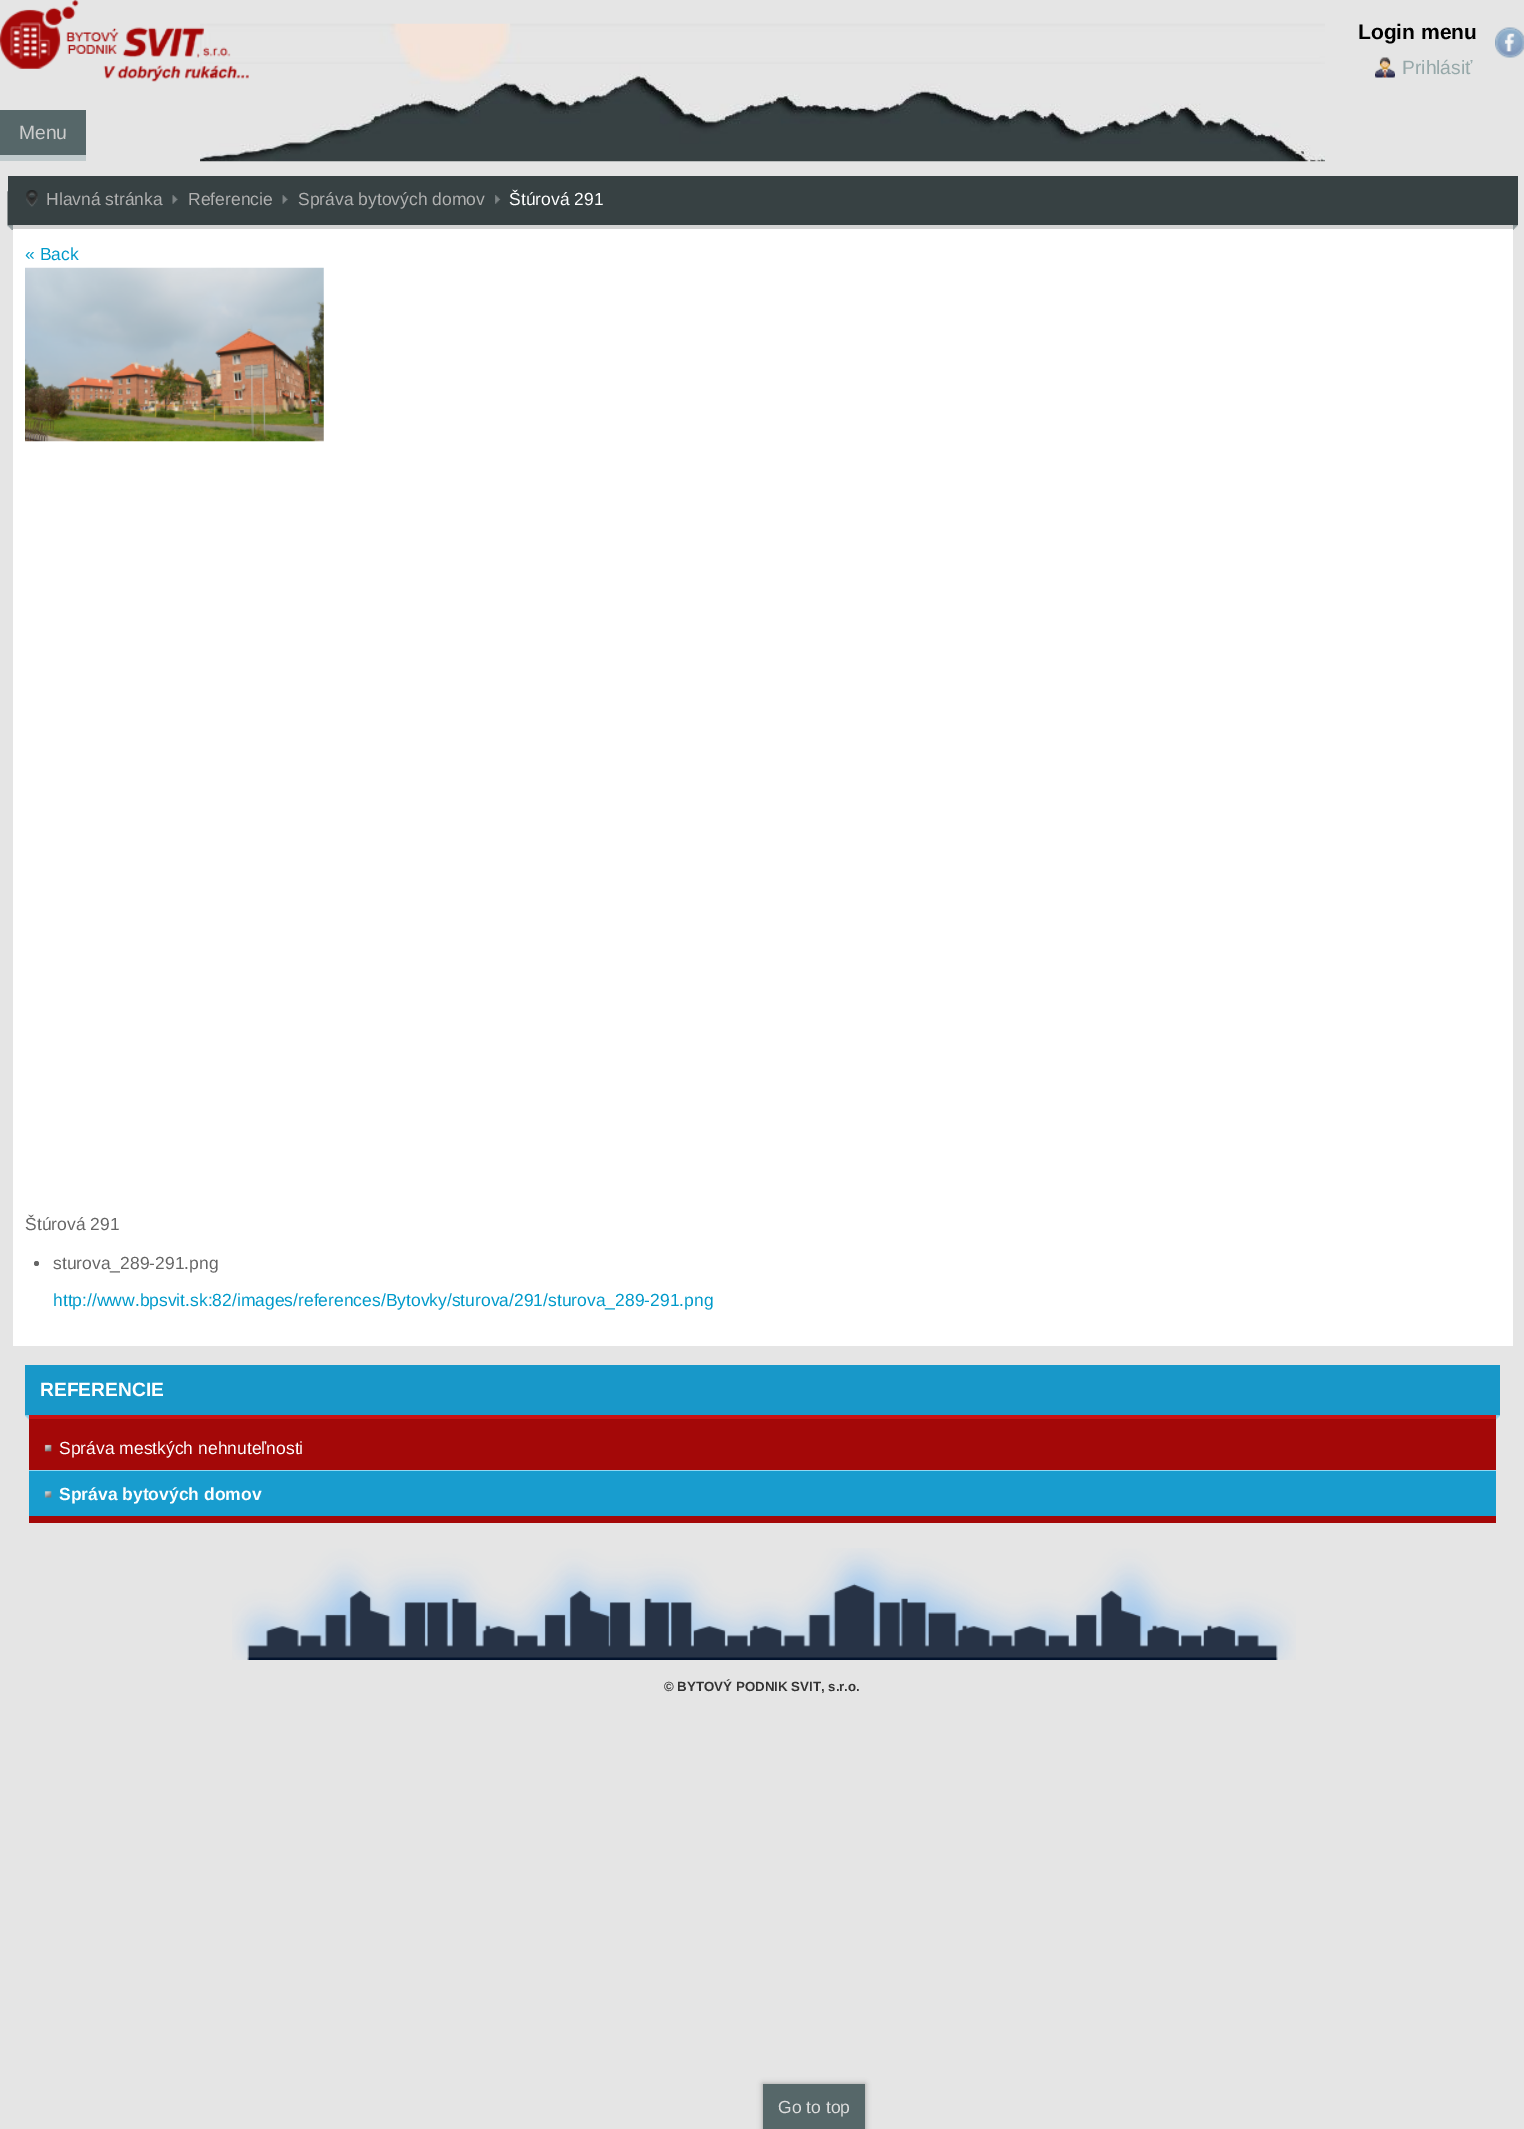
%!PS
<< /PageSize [1524 2129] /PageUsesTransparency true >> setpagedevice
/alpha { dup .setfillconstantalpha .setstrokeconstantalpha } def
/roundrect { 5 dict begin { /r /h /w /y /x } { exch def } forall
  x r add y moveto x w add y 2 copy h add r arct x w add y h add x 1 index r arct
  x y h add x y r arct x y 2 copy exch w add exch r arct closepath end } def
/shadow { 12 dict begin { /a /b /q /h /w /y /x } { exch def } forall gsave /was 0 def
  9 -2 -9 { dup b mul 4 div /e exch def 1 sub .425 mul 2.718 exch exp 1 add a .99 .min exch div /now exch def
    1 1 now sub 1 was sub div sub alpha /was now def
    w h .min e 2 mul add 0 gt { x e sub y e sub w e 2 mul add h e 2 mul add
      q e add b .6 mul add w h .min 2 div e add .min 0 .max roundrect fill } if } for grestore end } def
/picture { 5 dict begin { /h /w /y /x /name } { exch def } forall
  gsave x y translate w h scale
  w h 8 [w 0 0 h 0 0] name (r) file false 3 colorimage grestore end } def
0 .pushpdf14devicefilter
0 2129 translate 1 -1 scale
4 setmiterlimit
0.898 setgray
0 0 1524 2129 rectfill
(img1.rgb) 200 23 1125 139 picture
(img2.rgb) 0 0 249 82 picture
/LiberationSans-Bold [21 0 0 -21 0 0] selectfont
0 setgray
1358 39 moveto (Login menu) show
(img3.rgb) 1375 57 20 21 picture
/LiberationSans-Regular [19.25 0 0 -19.25 0 0] selectfont
0.588 0.659 0.663 setrgbcolor
1402 74 moveto (Prihlásiť) show
(img4.rgb) 1495 27 29 31 picture
0.337 0.404 0.412 setrgbcolor
0 110 86 45 rectfill
0.753 0.792 0.8 setrgbcolor
0 155 86 6 rectfill
0.8 setgray
19 139 moveto (Menu) show
(img5.rgb) 7 191 6 39 picture
(img6.rgb) 1513 225 5 5 picture
0.216 0.255 0.263 setrgbcolor
8 176 1510 49 rectfill
(img7.rgb) 26 190 12 17 picture
/LiberationSans-Regular [17.5 0 0 -17.5 0 0] selectfont
0.69 setgray
46 205 moveto (Hlavná stránka) show
(img8.rgb) 172 195 6 9 picture
188 205 moveto (Referencie) show
(img9.rgb) 282 195 6 9 picture
298 205 moveto (Správa bytových domov) show
(img10.rgb) 495 195 6 9 picture
1 setgray
509 205 moveto (Štúrová 291) show
13 229 1500 1117 rectfill
0.831 setgray
13 225 1500 4 rectfill
0 0.604 0.792 setrgbcolor
25 260 moveto (« Back) show
(img11.rgb) 25 267 299 175 picture
0.4 setgray
25 1230 moveto (Štúrová 291) show
newpath 36.5 1263.5 2.5 0 360 arc closepath fill
53 1269 moveto (sturova_289-291.png) show
0 0.604 0.792 setrgbcolor
53 1306 moveto (http://www.bpsvit.sk:82/images/references/Bytovky/sturova/291/sturova_289-291.png) show
(img12.rgb) 25 1415 4 5 picture
(img13.rgb) 1496 1415 4 5 picture
0.094 0.596 0.788 setrgbcolor
25 1365 1475 50 rectfill
/LiberationSans-Bold [19.25 0 0 -19.25 0 0] selectfont
1 setgray
40 1396 moveto (REFERENCIE) show
0.643 0.031 0.031 setrgbcolor
29 1419 1467 104 rectfill
0.78 0.071 0.071 setrgbcolor
29 1415 1467 4 rectfill
0.561 0.847 0.953 setrgbcolor
29 1470 1467 1 rectfill
(img14.rgb) 44 1444 8 8 picture
/LiberationSans-Regular [17.5 0 0 -17.5 0 0] selectfont
1 setgray
59 1454 moveto (Správa mestkých nehnuteľnosti) show
0.094 0.616 0.812 setrgbcolor
29 1471 1467 45 rectfill
(img15.rgb) 44 1491 8 7 picture
/LiberationSans-Bold [17.5 0 0 -17.5 0 0] selectfont
1 setgray
59 1500 moveto (Správa bytových domov) show
(img16.rgb) 232 1548 1064 112 picture
/LiberationSans-Bold [13.3 0 0 -13.3 0 0] selectfont
0.2 setgray
664 1691 moveto (© BYTOVÝ PODNIK SVIT, s.r.o.) show
0.6 setgray
763 2084 102 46 0 3 1 shadow
0.337 0.404 0.412 setrgbcolor
763 2084 102 45 rectfill
/LiberationSans-Regular [17.5 0 0 -17.5 0 0] selectfont
0.867 setgray
778 2113 moveto (Go to top) show
.poppdf14devicefilter showpage
